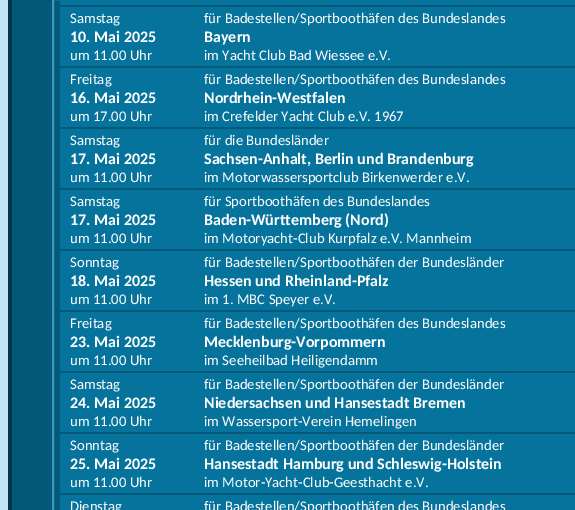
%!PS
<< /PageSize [575 510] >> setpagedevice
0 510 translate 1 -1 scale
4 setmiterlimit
0.761 0.902 0.953 setrgbcolor
0 0 575 510 rectfill
0.016 0.349 0.471 setrgbcolor
12 0 563 510 rectfill
0.008 0.216 0.29 setrgbcolor
8 0 4 510 rectfill
0.227 0.6 0.737 setrgbcolor
2 setlinewidth
53 -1 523 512 rectstroke
0.02 0.451 0.612 setrgbcolor
60 0 515 5 rectfill
60 7 515 59 rectfill
/Carlito-Regular [14.7 0 0 -14.7 0 0] selectfont
1 setgray
70 23 moveto (Samstag) show
/Carlito-Bold [16 0 0 -16 0 0] selectfont
70 42 moveto (10. Mai 2025) show
/Carlito-Regular [14.7 0 0 -14.7 0 0] selectfont
70 60 moveto (um 11.00 Uhr) show
204 23 moveto (für Badestellen/Sportboothäfen des Bundeslandes) show
/Carlito-Bold [16 0 0 -16 0 0] selectfont
204 42 moveto (Bayern) show
/Carlito-Regular [14.7 0 0 -14.7 0 0] selectfont
204 60 moveto (im Yacht Club Bad Wiessee e.V.) show
0.02 0.451 0.612 setrgbcolor
60 68 515 59 rectfill
1 setgray
70 84 moveto (Freitag) show
/Carlito-Bold [16 0 0 -16 0 0] selectfont
70 103 moveto (16. Mai 2025) show
/Carlito-Regular [14.7 0 0 -14.7 0 0] selectfont
70 121 moveto (um 17.00 Uhr) show
204 84 moveto (für Badestellen/Sportboothäfen des Bundeslandes) show
/Carlito-Bold [16 0 0 -16 0 0] selectfont
204 103 moveto (Nordrhein-Westfalen) show
/Carlito-Regular [14.7 0 0 -14.7 0 0] selectfont
204 121 moveto (im Crefelder Yacht Club e.V. 1967) show
0.02 0.451 0.612 setrgbcolor
60 129 515 59 rectfill
1 setgray
70 145 moveto (Samstag) show
/Carlito-Bold [16 0 0 -16 0 0] selectfont
70 164 moveto (17. Mai 2025) show
/Carlito-Regular [14.7 0 0 -14.7 0 0] selectfont
70 182 moveto (um 11.00 Uhr) show
204 145 moveto (für die Bundesländer) show
/Carlito-Bold [16 0 0 -16 0 0] selectfont
204 164 moveto (Sachsen-Anhalt, Berlin und Brandenburg) show
/Carlito-Regular [14.7 0 0 -14.7 0 0] selectfont
204 182 moveto (im Motorwassersportclub Birkenwerder e.V.) show
0.02 0.451 0.612 setrgbcolor
60 190 515 59 rectfill
1 setgray
70 206 moveto (Samstag) show
/Carlito-Bold [16 0 0 -16 0 0] selectfont
70 225 moveto (17. Mai 2025) show
/Carlito-Regular [14.7 0 0 -14.7 0 0] selectfont
70 243 moveto (um 11.00 Uhr) show
204 206 moveto (für Sportboothäfen des Bundeslandes) show
/Carlito-Bold [16 0 0 -16 0 0] selectfont
204 225 moveto (Baden-Württemberg \(Nord\)) show
/Carlito-Regular [14.7 0 0 -14.7 0 0] selectfont
204 243 moveto (im Motoryacht-Club Kurpfalz e.V. Mannheim) show
0.02 0.451 0.612 setrgbcolor
60 251 515 59 rectfill
1 setgray
70 267 moveto (Sonntag) show
/Carlito-Bold [16 0 0 -16 0 0] selectfont
70 286 moveto (18. Mai 2025) show
/Carlito-Regular [14.7 0 0 -14.7 0 0] selectfont
70 304 moveto (um 11.00 Uhr) show
204 267 moveto (für Badestellen/Sportboothäfen der Bundesländer) show
/Carlito-Bold [16 0 0 -16 0 0] selectfont
204 286 moveto (Hessen und Rheinland-Pfalz) show
/Carlito-Regular [14.7 0 0 -14.7 0 0] selectfont
204 304 moveto (im 1. MBC Speyer e.V.) show
0.02 0.451 0.612 setrgbcolor
60 312 515 59 rectfill
1 setgray
70 328 moveto (Freitag) show
/Carlito-Bold [16 0 0 -16 0 0] selectfont
70 347 moveto (23. Mai 2025) show
/Carlito-Regular [14.7 0 0 -14.7 0 0] selectfont
70 365 moveto (um 11.00 Uhr) show
204 328 moveto (für Badestellen/Sportboothäfen des Bundeslandes) show
/Carlito-Bold [16 0 0 -16 0 0] selectfont
204 347 moveto (Mecklenburg-Vorpommern) show
/Carlito-Regular [14.7 0 0 -14.7 0 0] selectfont
204 365 moveto (im Seeheilbad Heiligendamm) show
0.02 0.451 0.612 setrgbcolor
60 373 515 59 rectfill
1 setgray
70 389 moveto (Samstag) show
/Carlito-Bold [16 0 0 -16 0 0] selectfont
70 408 moveto (24. Mai 2025) show
/Carlito-Regular [14.7 0 0 -14.7 0 0] selectfont
70 426 moveto (um 11.00 Uhr) show
204 389 moveto (für Badestellen/Sportboothäfen der Bundesländer) show
/Carlito-Bold [16 0 0 -16 0 0] selectfont
204 408 moveto (Niedersachsen und Hansestadt Bremen) show
/Carlito-Regular [14.7 0 0 -14.7 0 0] selectfont
204 426 moveto (im Wassersport-Verein Hemelingen) show
0.02 0.451 0.612 setrgbcolor
60 434 515 59 rectfill
1 setgray
70 450 moveto (Sonntag) show
/Carlito-Bold [16 0 0 -16 0 0] selectfont
70 469 moveto (25. Mai 2025) show
/Carlito-Regular [14.7 0 0 -14.7 0 0] selectfont
70 487 moveto (um 11.00 Uhr) show
204 450 moveto (für Badestellen/Sportboothäfen der Bundesländer) show
/Carlito-Bold [16 0 0 -16 0 0] selectfont
204 469 moveto (Hansestadt Hamburg und Schleswig-Holstein) show
/Carlito-Regular [14.7 0 0 -14.7 0 0] selectfont
204 487 moveto (im Motor-Yacht-Club-Geesthacht e.V.) show
0.02 0.451 0.612 setrgbcolor
60 495 515 15 rectfill
1 setgray
70 511 moveto (Dienstag) show
204 511 moveto (für Badestellen/Sportboothäfen des Bundeslandes) show
showpage
